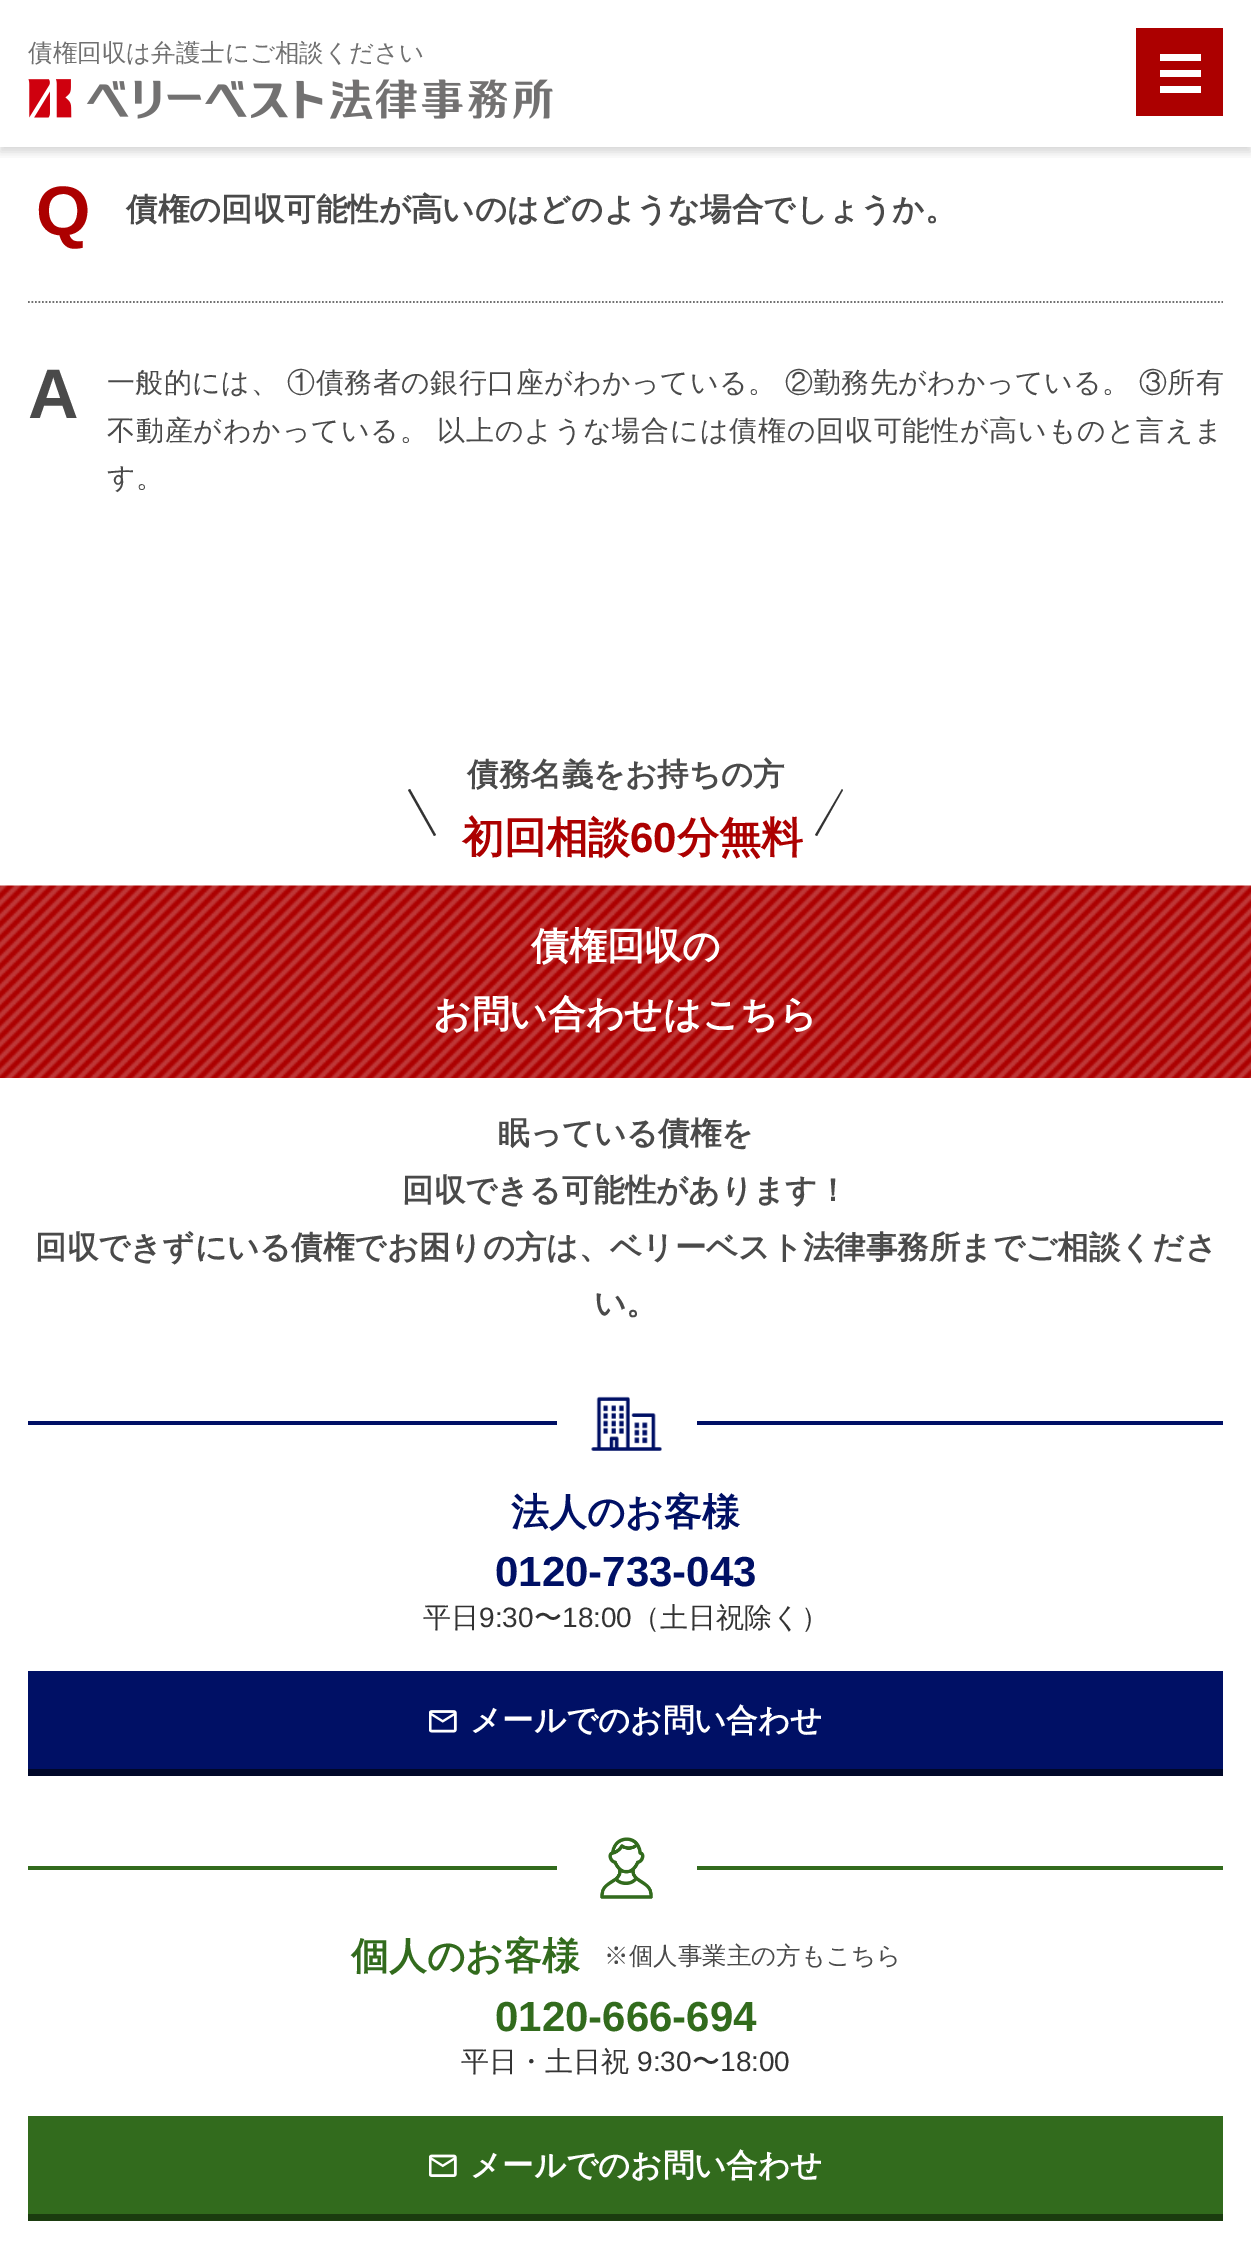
%!PS
<< /PageSize [1251 2242] /PageUsesTransparency true >> setpagedevice
/alpha { dup .setfillconstantalpha .setstrokeconstantalpha } def
/roundrect { 5 dict begin { /r /h /w /y /x } { exch def } forall
  x r add y moveto x w add y 2 copy h add r arct x w add y h add x 1 index r arct
  x y h add x y r arct x y 2 copy exch w add exch r arct closepath end } def
/shadow { 12 dict begin { /a /b /q /h /w /y /x } { exch def } forall gsave /was 0 def
  9 -2 -9 { dup b mul 4 div /e exch def 1 sub .425 mul 2.718 exch exp 1 add a .99 .min exch div /now exch def
    1 1 now sub 1 was sub div sub alpha /was now def
    w h .min e 2 mul add 0 gt { x e sub y e sub w e 2 mul add h e 2 mul add
      q e add b .6 mul add w h .min 2 div e add .min 0 .max roundrect fill } if } for grestore end } def
/picture { 5 dict begin { /h /w /y /x /name } { exch def } forall
  gsave x y translate w h scale
  w h 8 [w 0 0 h 0 0] name (r) file false 3 colorimage grestore end } def
0 .pushpdf14devicefilter
0 2242 translate 1 -1 scale
4 setmiterlimit
1 setgray
0 0 1251 2242 rectfill
gsave
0 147 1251 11 rectclip
0 setgray
0 5 1251 147 0 5 0.16 shadow
grestore
/WenQuanYiZenHei-Medium [24.5 0 0 -24.5 0 0] selectfont
0.439 setgray
28 61 moveto (債権回収は弁護士にご相談ください) show
(img1.rgb) 28 79 525 40 picture
0.675 0 0 setrgbcolor
1136 28 87 88 rectfill
1 setgray
1160 54 41 7 rectfill
1160 70 41 7 rectfill
1160 86 41 7 rectfill
/LiberationSans-Bold [70 0 0 -70 0 0] selectfont
0.675 0 0 setrgbcolor
36 235 moveto (Q) show
/WenQuanYiZenHei-Bold [31.5 0 0 -31.5 0 0] selectfont
0.29 setgray
126 220 moveto (債権の回収可能性が高いのはどのような場合でしょうか。) show
0.439 setgray
1.8 setlinewidth
[1.75 1.75] 0 setdash
newpath 28 302 moveto 1223 302 lineto stroke
/LiberationSans-Bold [70 0 0 -70 0 0] selectfont
0.29 setgray
28 418 moveto (A) show
/WenQuanYiZenHei-Medium [28 0 0 -28 0 0] selectfont
107 392 moveto -0.5 0 32 0.45 0 (一般的には、 ①債務者の銀行口座がわかっている。 ②勤務先がわかっている。 ③所有) awidthshow
107 440 moveto -0.5 0 32 0.8 0 (不動産がわかっている。 以上のような場合には債権の回収可能性が高いものと言えま) awidthshow
107 487 moveto (す。) show
0.2 setgray
newpath 410 789 moveto 436 835 lineto 434 836 lineto 408 790 lineto closepath fill
/WenQuanYiZenHei-Bold [31.5 0 0 -31.5 0 0] selectfont
0.29 setgray
467 785 moveto (債務名義をお持ちの方) show
/WenQuanYiZenHei-Bold [42 0 0 -42 0 0] selectfont
0.675 0 0 setrgbcolor
462 852 moveto (初回相談) show
/LiberationSans-Bold [42 0 0 -42 0 0] selectfont
630 852 moveto (60) show
/WenQuanYiZenHei-Bold [42 0 0 -42 0 0] selectfont
677 852 moveto (分無料) show
0.2 setgray
newpath 815 835 moveto 842 789 lineto 843 790 lineto 817 836 lineto closepath fill
(img2.rgb) 0 885 1251 193 picture
/WenQuanYiZenHei-Bold [37.75 0 0 -37.75 0 0] selectfont
1 setgray
531 959 moveto (債権回収の) show
433 1027 moveto (お問い合わせはこちら) show
/WenQuanYiZenHei-Bold [31.5 0 0 -31.5 0 0] selectfont
0.29 setgray
498 1144 moveto (眠っている債権を) show
402 1201 moveto (回収できる可能性があります！) show
35 1258 moveto (回収できずにいる債権でお困りの方は、ベリーベスト法律事務所までご相談くださ) show
594 1314 moveto (い。) show
0 0.063 0.396 setrgbcolor
28 1421 529 4 rectfill
(img3.rgb) 591 1396 71 55 picture
697 1421 526 4 rectfill
/WenQuanYiZenHei-Bold [37.75 0 0 -37.75 0 0] selectfont
511 1525 moveto (法人のお客様) show
/LiberationSans-Bold [42 0 0 -42 0 0] selectfont
495 1586 moveto (0120-733-043) show
/WenQuanYiZenHei-Medium [28 0 0 -28 0 0] selectfont
0.2 setgray
423 1627 moveto (平日) show
/LiberationSans-Regular [28 0 0 -28 0 0] selectfont
479 1627 moveto (9:30) show
/WenQuanYiZenHei-Medium [28 0 0 -28 0 0] selectfont
534 1627 moveto (〜) show
/LiberationSans-Regular [28 0 0 -28 0 0] selectfont
562 1627 moveto (18:00) show
/WenQuanYiZenHei-Medium [28 0 0 -28 0 0] selectfont
632 1627 moveto (（土日祝除く）) show
0 0.063 0.396 setrgbcolor
28 1671 1195 98 rectfill
0 0.027 0.161 setrgbcolor
28 1769 1195 7 rectfill
(img4.rgb) 429 1710 28 23 picture
/WenQuanYiZenHei-Bold [31.5 0 0 -31.5 0 0] selectfont
1 setgray
470 1731 moveto (メールでのお問い合わせ) show
0.196 0.42 0.114 setrgbcolor
28 1866 529 4 rectfill
(img5.rgb) 600 1837 53 62 picture
697 1866 526 4 rectfill
/WenQuanYiZenHei-Bold [37.75 0 0 -37.75 0 0] selectfont
351 1969 moveto (個人のお客様) show
/WenQuanYiZenHei-Medium [24.5 0 0 -24.5 0 0] selectfont
0.29 setgray
604 1964 moveto (※個人事業主の方もこちら) show
/LiberationSans-Bold [42 0 0 -42 0 0] selectfont
0.196 0.42 0.114 setrgbcolor
495 2031 moveto (0120-666-694) show
/WenQuanYiZenHei-Medium [28 0 0 -28 0 0] selectfont
0.2 setgray
461 2071 moveto (平日・土日祝) show
/LiberationSans-Regular [28 0 0 -28 0 0] selectfont
637 2071 moveto (9:30) show
/WenQuanYiZenHei-Medium [28 0 0 -28 0 0] selectfont
692 2071 moveto (〜) show
/LiberationSans-Regular [28 0 0 -28 0 0] selectfont
720 2071 moveto (18:00) show
0.196 0.42 0.114 setrgbcolor
28 2116 1195 98 rectfill
0.106 0.235 0.059 setrgbcolor
28 2214 1195 7 rectfill
(img6.rgb) 429 2154 28 23 picture
/WenQuanYiZenHei-Bold [31.5 0 0 -31.5 0 0] selectfont
1 setgray
470 2176 moveto (メールでのお問い合わせ) show
.poppdf14devicefilter showpage
